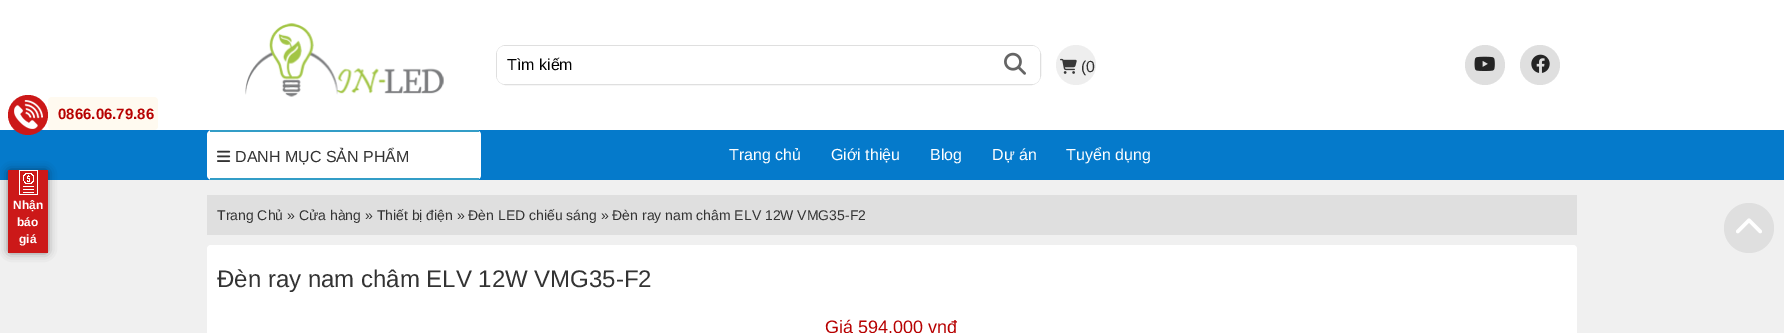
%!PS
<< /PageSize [1784 333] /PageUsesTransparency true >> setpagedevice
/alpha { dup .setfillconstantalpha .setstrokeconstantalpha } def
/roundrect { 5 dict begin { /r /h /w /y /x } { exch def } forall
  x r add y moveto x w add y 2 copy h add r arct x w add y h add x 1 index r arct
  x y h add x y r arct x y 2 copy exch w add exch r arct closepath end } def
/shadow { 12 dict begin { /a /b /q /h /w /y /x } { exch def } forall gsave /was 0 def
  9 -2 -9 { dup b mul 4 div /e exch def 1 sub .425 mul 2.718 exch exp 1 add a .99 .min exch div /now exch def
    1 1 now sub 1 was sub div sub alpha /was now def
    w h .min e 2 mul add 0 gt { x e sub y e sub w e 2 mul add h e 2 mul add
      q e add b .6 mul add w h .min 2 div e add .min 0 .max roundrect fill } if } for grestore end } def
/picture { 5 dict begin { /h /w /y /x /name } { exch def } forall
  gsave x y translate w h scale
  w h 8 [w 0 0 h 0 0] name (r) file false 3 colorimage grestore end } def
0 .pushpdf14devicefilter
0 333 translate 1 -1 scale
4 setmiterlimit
0.941 setgray
0 0 1784 333 rectfill
1 setgray
0 0 1784 130 rectfill
(img1.rgb) 245 23 199 74 picture
0.875 setgray
496.5 45.5 544 39 9.5 roundrect stroke
1 setgray
497 46 543 38 8 roundrect fill
/LiberationSans-Regular [16 0 0 -16 0 0] selectfont
0 setgray
507 70 moveto (Tìm kiếm) show
(img2.rgb) 1004 52 22 23 picture
0.933 setgray
newpath 1076 65 20 0 360 arc closepath fill
(img3.rgb) 1060 58 17 16 picture
0.2 setgray
1081 72 moveto (\(0) show
0.875 setgray
newpath 1485 65 20 0 360 arc closepath fill
(img4.rgb) 1474 56 21 15 picture
newpath 1540 65 20 0 360 arc closepath fill
(img5.rgb) 1531 54 19 19 picture
0.02 0.478 0.796 setrgbcolor
0 130 1784 50 rectfill
0.8 0.094 0.094 setrgbcolor
newpath 28 115 20 0 360 arc closepath fill
(img6.rgb) 14 100 29 29 picture
1 0.98 0.941 setrgbcolor
48 97 110 33 4 roundrect fill
/LiberationSans-Bold [15 0 0 -15 0 0] selectfont
0.718 0.004 0.004 setrgbcolor
58 119 moveto (0866.06.79.86) show
0 setgray
10 172 36 79 0 5 0.7 shadow
0.8 0.094 0.094 setrgbcolor
8 170 40 83 rectfill
(img7.rgb) 19 170 19 25 picture
/LiberationSans-Bold [12 0 0 -12 0 0] selectfont
1 setgray
13 209 moveto (Nhận) show
17 226 moveto (báo) show
19 243 moveto (giá) show
207 130 274 50 5 roundrect fill
0.2 0.616 0.78 setrgbcolor
210 130 269 2 rectfill
210 178 269 2 rectfill
(img8.rgb) 217 150 14 12 picture
/LiberationSans-Regular [16 0 0 -16 0 0] selectfont
0.2 setgray
235 162 moveto (DANH MỤC SẢN PHẨM) show
1 setgray
729 160 moveto (Trang chủ) show
831 160 moveto (Giới thiệu) show
930 160 moveto (Blog) show
992 160 moveto (Dự án) show
1066 160 moveto (Tuyển dụng) show
0.875 setgray
207 195 1370 40 rectfill
/LiberationSans-Regular [14 0 0 -14 0 0] selectfont
0.2 setgray
217 220 moveto (Trang Chủ » Cửa hàng » Thiết bị điện » Đèn LED chiếu sáng » Đèn ray nam châm ELV 12W VMG35-F2) show
1 setgray
207 245 1370 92 4 roundrect fill
/LiberationSans-Regular [24 0 0 -24 0 0] selectfont
0.2 setgray
217 287 moveto (Đèn ray nam châm ELV 12W VMG35-F2) show
/LiberationSans-Regular [18 0 0 -18 0 0] selectfont
0.718 0.004 0.004 setrgbcolor
825 333 moveto (Giá 594.000 vnđ) show
0.875 setgray
newpath 1749 228 25 0 360 arc closepath fill
(img9.rgb) 1736 218 26 16 picture
.poppdf14devicefilter showpage
